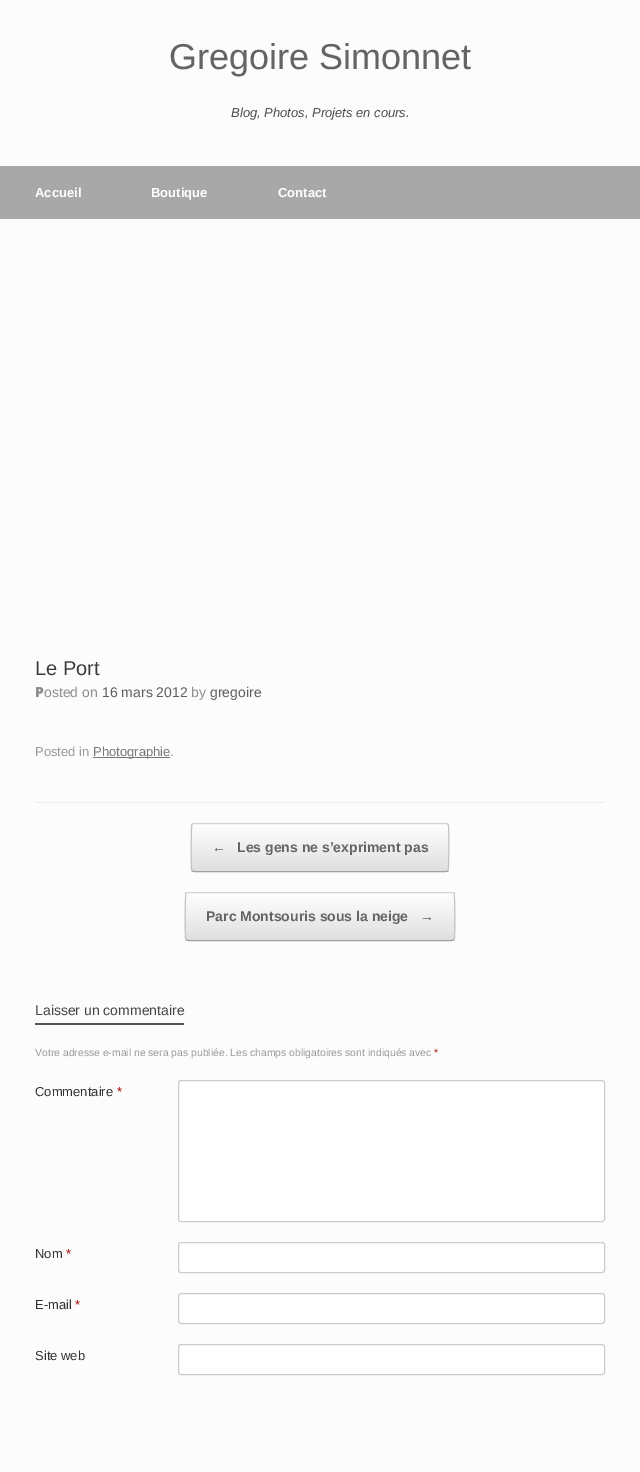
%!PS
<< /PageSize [640 1472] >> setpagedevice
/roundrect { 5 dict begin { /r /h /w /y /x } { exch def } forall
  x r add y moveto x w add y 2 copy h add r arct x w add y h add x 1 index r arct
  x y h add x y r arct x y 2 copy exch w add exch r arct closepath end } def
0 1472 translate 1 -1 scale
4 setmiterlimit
0.988 setgray
0 0 640 1472 rectfill
/LiberationSans-Regular [36 0 0 -36 0 0] selectfont
0.392 setgray
169 69 moveto (Gregoire Simonnet) show
/LiberationSans-Italic [13 0 0 -13 0 0] selectfont
0.294 setgray
231 117 moveto (Blog, Photos, Projets en cours.) show
0.659 setgray
0 166 640 53 rectfill
/LiberationSans-Bold [13 0 0 -13 0 0] selectfont
1 setgray
35 197 moveto (Accueil) show
151 197 moveto (Boutique) show
278 197 moveto (Contact) show
0.933 setgray
35 802 570 1 rectfill
/LiberationSans-Regular [20 0 0 -20 0 0] selectfont
0.231 setgray
35 675 moveto (Le Port) show
/NotoSans-Black [14 0 0 -14 0 0] selectfont
0.561 setgray
35 697 moveto (P) show
/LiberationSans-Regular [14 0 0 -14 0 0] selectfont
44 697 moveto (osted on) show
0.369 setgray
102 697 moveto (16 mars 2012) show
0.561 setgray
191 697 moveto (by) show
0.369 setgray
210 697 moveto (gregoire) show
/LiberationSans-Regular [13 0 0 -13 0 0] selectfont
0.6 setgray
35 756 moveto (Posted in) show
0.467 setgray
93 757 77 1 rectfill
93 756 moveto (Photographie) show
0.6 setgray
170 756 moveto (.) show
gsave
191 823 258 49 3 roundrect clip newpath
gsave newpath 191 824 moveto 449 824 lineto 449 871 lineto 191 871 lineto closepath clip newpath
<< /ShadingType 2 /ColorSpace /DeviceRGB /Coords [192 871 192 824] /Extend [true true] /Function << /FunctionType 2 /Domain [0 1] /C0 [0.875 0.875 0.875] /C1 [1 1 1] /N 1 >> >> shfill grestore
grestore
0.824 setgray
newpath 192 824 moveto 194 823.5 lineto 446 823.5 lineto 448 824 lineto stroke
0.765 setgray
newpath 448 824 moveto 448.5 826 lineto 449 830 449 869.5 448 871 curveto stroke
0.624 setgray
newpath 448 871 moveto 446 871.5 lineto 194 871.5 lineto 192 871 lineto stroke
0.765 setgray
newpath 192 871 moveto 191.5 869 lineto 191 865 191 825.5 192 824 curveto stroke
/LiberationSans-Bold [14 0 0 -14 0 0] selectfont
0.392 setgray
212 852 moveto (←) show
237 852 moveto (Les gens ne s’expriment pas) show
gsave
185 892 270 49 3 roundrect clip newpath
gsave newpath 185 893 moveto 455 893 lineto 455 940 lineto 185 940 lineto closepath clip newpath
<< /ShadingType 2 /ColorSpace /DeviceRGB /Coords [186 940 186 893] /Extend [true true] /Function << /FunctionType 2 /Domain [0 1] /C0 [0.875 0.875 0.875] /C1 [1 1 1] /N 1 >> >> shfill grestore
grestore
0.824 setgray
newpath 186 893 moveto 188 892.5 lineto 452 892.5 lineto 454 893 lineto stroke
0.765 setgray
newpath 454 893 moveto 455 894.5 455 934 454.5 938 curveto 454 940 lineto stroke
0.624 setgray
newpath 454 940 moveto 452 940.5 lineto 188 940.5 lineto 186 940 lineto stroke
0.765 setgray
newpath 186 940 moveto 185.5 938 lineto 185 934 185 894.5 186 893 curveto stroke
0.392 setgray
206 921 moveto (Parc Montsouris sous la neige) show
420 921 moveto (→) show
0.333 setgray
35 1023 149 2 rectfill
/LiberationSans-Regular [14 0 0 -14 0 0] selectfont
0.267 setgray
35 1015 moveto (Laisser un commentaire) show
/LiberationSans-Regular [10.4 0 0 -10.4 0 0] selectfont
0.6 setgray
35 1056 moveto (Votre adresse e-mail ne sera pas publiée. Les champs obligatoires sont indiqués avec) show
0.643 0.031 0.008 setrgbcolor
434 1056 moveto (*) show
/LiberationSans-Regular [13 0 0 -13 0 0] selectfont
0.2 setgray
35 1096 moveto (Commentaire) show
0.643 0.031 0.008 setrgbcolor
117 1096 moveto (*) show
1 setgray
178.5 1080.5 426 141 2.5 roundrect gsave fill grestore
0.8 setgray
stroke
0.2 setgray
35 1258 moveto (Nom) show
0.643 0.031 0.008 setrgbcolor
66 1258 moveto (*) show
1 setgray
178.5 1242.5 426 30 2.5 roundrect gsave fill grestore
0.8 setgray
stroke
0.2 setgray
35 1309 moveto (E-mail) show
0.643 0.031 0.008 setrgbcolor
75 1309 moveto (*) show
1 setgray
178.5 1293.5 426 30 2.5 roundrect gsave fill grestore
0.8 setgray
stroke
0.2 setgray
35 1360 moveto (Site web) show
1 setgray
178.5 1344.5 426 30 2.5 roundrect gsave fill grestore
0.8 setgray
stroke
showpage
